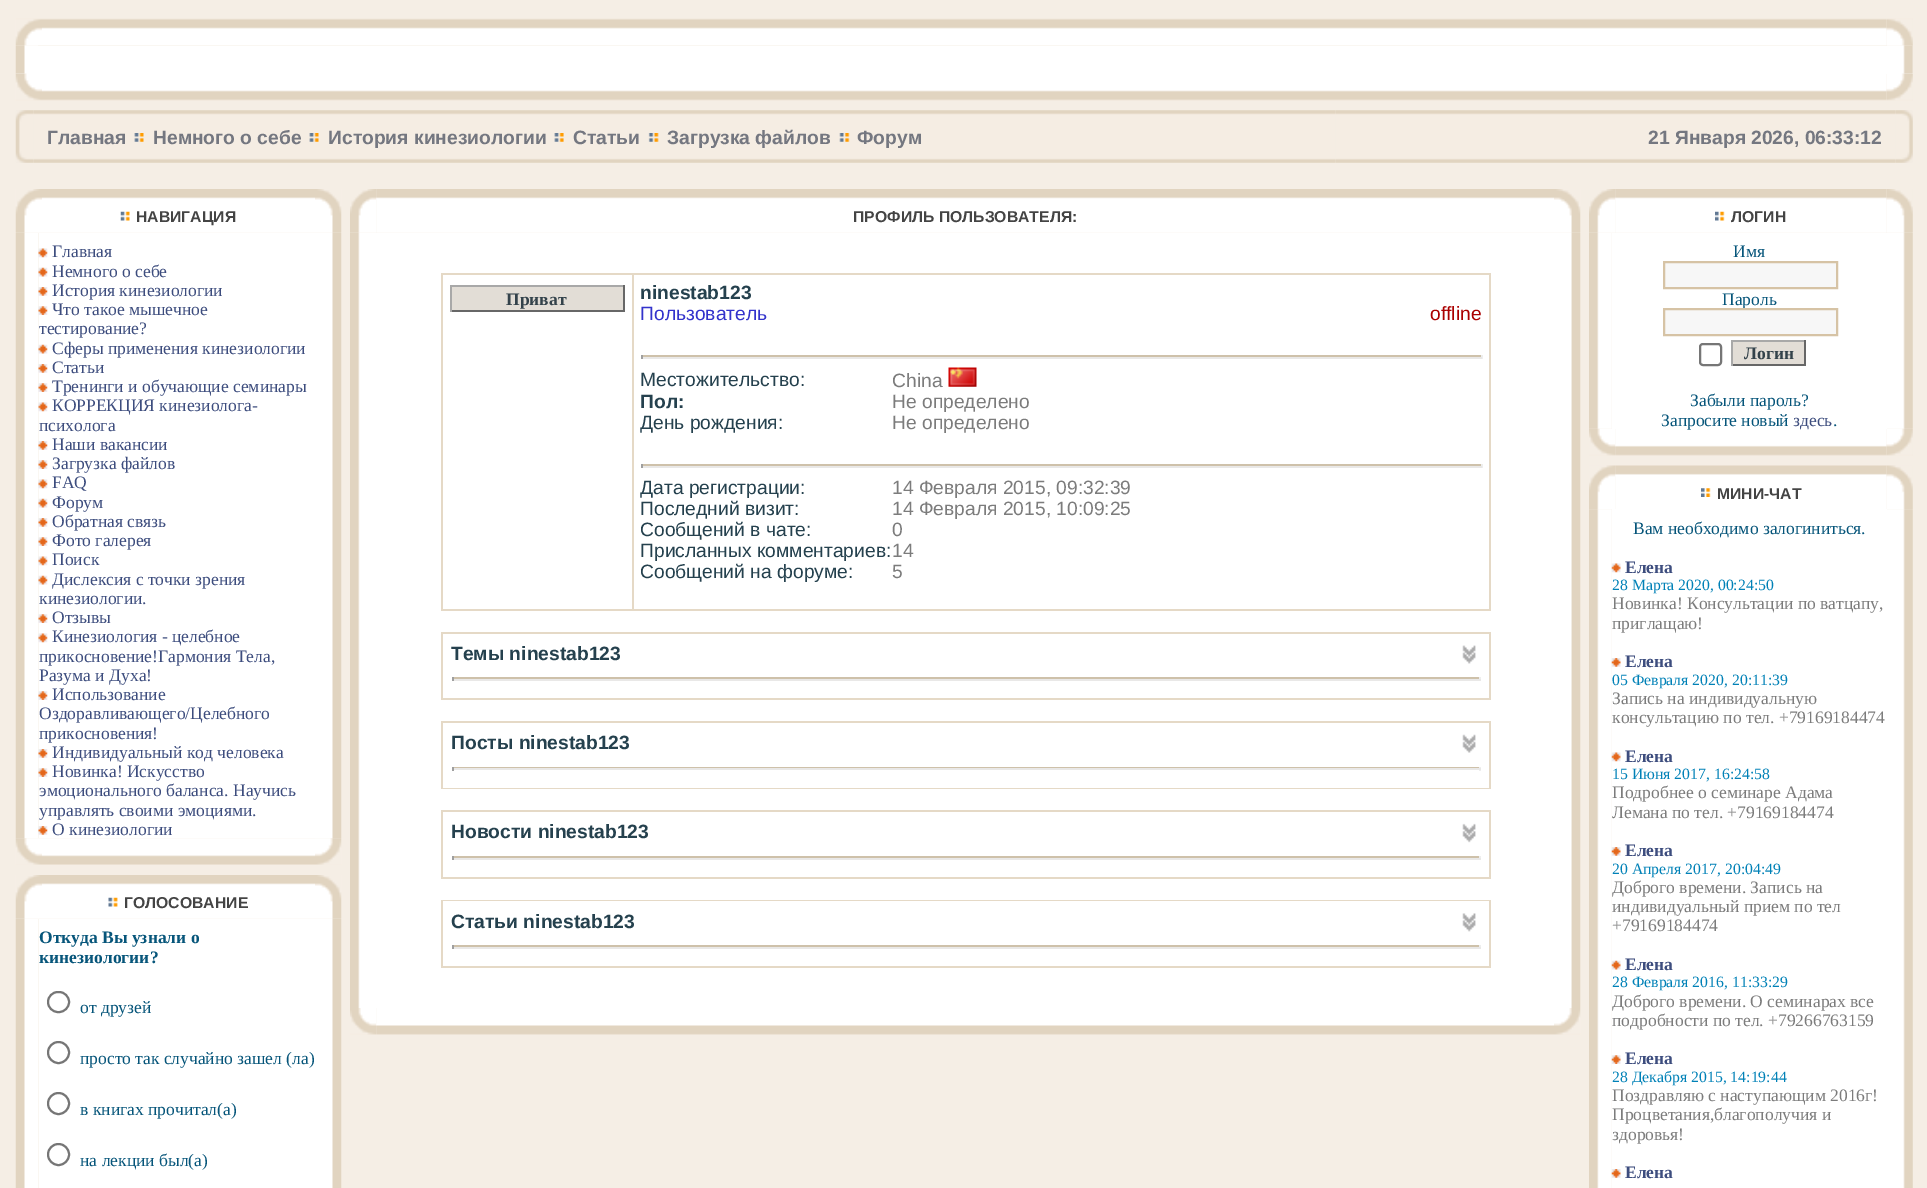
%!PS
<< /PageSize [1927 1188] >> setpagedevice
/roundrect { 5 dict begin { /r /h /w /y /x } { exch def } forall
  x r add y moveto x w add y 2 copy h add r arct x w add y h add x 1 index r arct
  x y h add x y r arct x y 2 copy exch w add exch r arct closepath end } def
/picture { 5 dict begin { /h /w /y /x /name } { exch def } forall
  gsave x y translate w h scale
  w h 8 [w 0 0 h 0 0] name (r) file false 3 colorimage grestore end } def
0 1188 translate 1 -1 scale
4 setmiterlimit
0.961 0.933 0.898 setrgbcolor
0 0 1927 1188 rectfill
(img1.rgb) 15 18 27 28 picture
(img2.rgb) 42 18 1845 28 picture
(img3.rgb) 1886 18 27 28 picture
1 setgray
16 46 1897 28 rectfill
(img4.rgb) 15 45 23 29 picture
(img5.rgb) 1887 45 26 29 picture
(img6.rgb) 15 73 27 28 picture
(img7.rgb) 42 74 1845 27 picture
(img8.rgb) 1886 73 27 28 picture
(img9.rgb) 15 110 19 53 picture
(img10.rgb) 33 110 1303 53 picture
/LiberationSans-Bold [19.25 0 0 -19.25 0 0] selectfont
0.455 0.467 0.502 setrgbcolor
47 144 moveto (Главная) show
(img11.rgb) 134 133 10 9 picture
153 144 moveto (Немного о себе) show
(img11.rgb) 309 133 10 9 picture
328 144 moveto (История кинезиологии) show
(img12.rgb) 554 133 10 9 picture
573 144 moveto (Статьи) show
(img13.rgb) 648 133 11 9 picture
667 144 moveto (Загрузка файлов) show
(img14.rgb) 839 133 11 9 picture
857 144 moveto (Форум) show
(img15.rgb) 1335 110 561 53 picture
1648 144 moveto (21 Января 2026, 06:33:12) show
(img16.rgb) 1895 110 18 53 picture
(img17.rgb) 15 189 27 44 picture
(img18.rgb) 42 189 273 44 picture
(img19.rgb) 120 211 10 10 picture
/LiberationSans-Bold [15.75 0 0 -15.75 0 0] selectfont
0.267 setgray
136 222 moveto (НАВИГАЦИЯ) show
(img20.rgb) 315 189 27 44 picture
(img21.rgb) 15 233 24 606 picture
1 setgray
39 233 276 605 rectfill
(img22.rgb) 38 248 10 10 picture
/LiberationSerif-Regular [17.5 0 0 -17.5 0 0] selectfont
0.239 0.302 0.494 setrgbcolor
52 257 moveto (Главная) show
(img23.rgb) 38 267 10 10 picture
52 277 moveto (Немного о себе) show
(img24.rgb) 38 287 10 9 picture
52 296 moveto (История кинезиологии) show
(img25.rgb) 38 306 10 9 picture
52 315 moveto (Что такое мышечное) show
39 334 moveto (тестирование?) show
(img23.rgb) 38 344 10 10 picture
52 354 moveto (Сферы применения кинезиологии) show
(img24.rgb) 38 364 10 9 picture
52 373 moveto (Статьи) show
(img25.rgb) 38 383 10 9 picture
52 392 moveto (Тренинги и обучающие семинары) show
(img22.rgb) 38 402 10 10 picture
52 411 moveto (КОРРЕКЦИЯ кинезиолога-) show
39 431 moveto (психолога) show
(img24.rgb) 38 441 10 9 picture
52 450 moveto (Наши вакансии) show
(img25.rgb) 38 460 10 9 picture
52 469 moveto (Загрузка файлов) show
(img22.rgb) 38 479 10 10 picture
52 488 moveto (FAQ) show
(img23.rgb) 38 498 10 10 picture
52 508 moveto (Форум) show
(img24.rgb) 38 518 10 9 picture
52 527 moveto (Обратная связь) show
(img25.rgb) 38 537 10 9 picture
52 546 moveto (Фото галерея) show
(img22.rgb) 38 556 10 10 picture
52 565 moveto (Поиск) show
(img23.rgb) 38 575 10 10 picture
52 585 moveto (Дислексия с точки зрения) show
39 604 moveto (кинезиологии.) show
(img25.rgb) 38 614 10 9 picture
52 623 moveto (Отзывы) show
(img22.rgb) 38 633 10 10 picture
52 642 moveto (Кинезиология - целебное) show
39 662 moveto (прикосновение!Гармония Тела,) show
39 681 moveto (Разума и Духа!) show
(img25.rgb) 38 691 10 9 picture
52 700 moveto (Использование) show
39 719 moveto (Оздоравливающего/Целебного) show
39 739 moveto (прикосновения!) show
(img24.rgb) 38 749 10 9 picture
52 758 moveto (Индивидуальный код человека) show
(img25.rgb) 38 768 10 9 picture
52 777 moveto (Новинка! Искусство) show
39 796 moveto (эмоционального баланса. Научись) show
39 816 moveto (управлять своими эмоциями.) show
(img24.rgb) 38 826 10 9 picture
52 835 moveto (О кинезиологии) show
(img26.rgb) 315 233 27 606 picture
(img27.rgb) 15 838 27 27 picture
(img28.rgb) 42 838 273 27 picture
(img29.rgb) 315 838 27 27 picture
(img17.rgb) 15 875 27 44 picture
(img18.rgb) 42 875 273 44 picture
(img30.rgb) 108 897 10 10 picture
/LiberationSans-Bold [15.75 0 0 -15.75 0 0] selectfont
0.267 setgray
124 908 moveto (ГОЛОСОВАНИЕ) show
(img20.rgb) 315 875 27 44 picture
(img31.rgb) 15 919 24 269 picture
1 setgray
39 919 276 269 rectfill
/LiberationSerif-Bold [17.5 0 0 -17.5 0 0] selectfont
0.024 0.333 0.478 setrgbcolor
39 943 moveto (Откуда Вы узнали о) show
39 963 moveto (кинезиологии?) show
0.463 setgray
2 setlinewidth
48 992 21 20 10 roundrect stroke
/LiberationSerif-Regular [17.5 0 0 -17.5 0 0] selectfont
0.024 0.333 0.478 setrgbcolor
80 1013 moveto (от друзей) show
0.463 setgray
newpath 58.5 1052.5 10.5 0 360 arc closepath stroke
0.024 0.333 0.478 setrgbcolor
80 1064 moveto (просто так случайно зашел \(ла\)) show
0.463 setgray
newpath 58.5 1103.5 10.5 0 360 arc closepath stroke
0.024 0.333 0.478 setrgbcolor
80 1115 moveto (в книгах прочитал\(а\)) show
0.463 setgray
newpath 58.5 1154.5 10.5 0 360 arc closepath stroke
0.024 0.333 0.478 setrgbcolor
80 1166 moveto (на лекции был\(а\)) show
(img32.rgb) 315 919 27 269 picture
(img33.rgb) 350 189 27 44 picture
(img34.rgb) 376 189 1178 44 picture
/LiberationSans-Bold [15.75 0 0 -15.75 0 0] selectfont
0.267 setgray
853 222 moveto (ПРОФИЛЬ ПОЛЬЗОВАТЕЛЯ:) show
(img35.rgb) 1554 189 27 44 picture
(img36.rgb) 350 233 26 775 picture
1 setgray
376 233 1178 775 rectfill
0.898 0.851 0.776 setrgbcolor
441 273 1050 338 rectfill
1 setgray
443 275 189 334 rectfill
0.886 0.867 0.839 setrgbcolor
452 287 171 23 rectfill
0.659 setgray
450 285 175 2 rectfill
0.404 setgray
623 285 2 27 rectfill
450 310 175 2 rectfill
0.659 setgray
450 285 2 27 rectfill
/LiberationSerif-Bold [17.5 0 0 -17.5 0 0] selectfont
0.2 0.259 0.294 setrgbcolor
506 305 moveto (Приват) show
1 setgray
634 275 855 334 rectfill
/LiberationSans-Bold [19.25 0 0 -19.25 0 0] selectfont
0.145 0.255 0.306 setrgbcolor
640 299 moveto (ninestab123) show
/LiberationSans-Regular [19.25 0 0 -19.25 0 0] selectfont
0.2 0.2 0.8 setrgbcolor
640 320 moveto (Пользователь) show
0.667 0 0 setrgbcolor
1430 320 moveto (offline) show
0.808 0.757 0.667 setrgbcolor
641 355 841 2 rectfill
0.933 setgray
1481 355 2 4 rectfill
0.914 0.91 0.906 setrgbcolor
641 357 841 2 rectfill
0.624 setgray
641 355 2 4 rectfill
0.145 0.255 0.306 setrgbcolor
640 386 moveto (Местожительство:) show
0.486 setgray
892 387 moveto (China) show
(img37.rgb) 948 367 29 20 picture
/LiberationSans-Bold [19.25 0 0 -19.25 0 0] selectfont
0.145 0.255 0.306 setrgbcolor
640 408 moveto (Пол:) show
/LiberationSans-Regular [19.25 0 0 -19.25 0 0] selectfont
0.486 setgray
892 408 moveto (Не определено) show
0.145 0.255 0.306 setrgbcolor
640 429 moveto (День рождения:) show
0.486 setgray
892 429 moveto (Не определено) show
0.808 0.757 0.667 setrgbcolor
641 464 841 2 rectfill
0.933 setgray
1481 464 2 4 rectfill
0.914 0.91 0.906 setrgbcolor
641 466 841 2 rectfill
0.624 setgray
641 464 2 4 rectfill
0.145 0.255 0.306 setrgbcolor
640 494 moveto (Дата регистрации:) show
0.486 setgray
892 494 moveto (14 Февраля 2015, 09:32:39) show
0.145 0.255 0.306 setrgbcolor
640 515 moveto (Последний визит:) show
0.486 setgray
892 515 moveto (14 Февраля 2015, 10:09:25) show
0.145 0.255 0.306 setrgbcolor
640 536 moveto (Сообщений в чате:) show
0.486 setgray
892 536 moveto (0) show
0.145 0.255 0.306 setrgbcolor
640 557 moveto (Присланных комментариев:) show
0.486 setgray
892 557 moveto (14) show
0.145 0.255 0.306 setrgbcolor
640 578 moveto (Сообщений на форуме:) show
0.486 setgray
892 578 moveto (5) show
0.898 0.851 0.776 setrgbcolor
441 632 1050 68 rectfill
1 setgray
443 634 1046 64 rectfill
/LiberationSans-Bold [19.25 0 0 -19.25 0 0] selectfont
0.145 0.255 0.306 setrgbcolor
451 660 moveto (Темы ninestab123) show
(img38.rgb) 1462 645 14 19 picture
0.808 0.757 0.667 setrgbcolor
452 677 1029 2 rectfill
0.933 setgray
1479 677 2 4 rectfill
0.914 0.91 0.906 setrgbcolor
452 679 1029 2 rectfill
0.624 setgray
452 677 2 4 rectfill
0.898 0.851 0.776 setrgbcolor
441 721 1050 68 rectfill
1 setgray
443 723 1046 65 rectfill
0.145 0.255 0.306 setrgbcolor
451 749 moveto (Посты ninestab123) show
(img39.rgb) 1462 734 14 19 picture
0.808 0.757 0.667 setrgbcolor
452 767 1029 1 rectfill
0.933 setgray
1479 767 2 4 rectfill
0.914 0.91 0.906 setrgbcolor
452 768 1029 2 rectfill
0.624 setgray
452 767 2 4 rectfill
0.898 0.851 0.776 setrgbcolor
441 810 1050 69 rectfill
1 setgray
443 812 1046 65 rectfill
0.145 0.255 0.306 setrgbcolor
451 838 moveto (Новости ninestab123) show
(img40.rgb) 1462 823 14 20 picture
0.808 0.757 0.667 setrgbcolor
452 856 1029 2 rectfill
0.933 setgray
1479 856 2 4 rectfill
0.914 0.91 0.906 setrgbcolor
452 858 1029 2 rectfill
0.624 setgray
452 856 2 4 rectfill
0.898 0.851 0.776 setrgbcolor
441 900 1050 68 rectfill
1 setgray
443 901 1046 65 rectfill
0.145 0.255 0.306 setrgbcolor
451 928 moveto (Статьи ninestab123) show
(img41.rgb) 1462 913 14 19 picture
0.808 0.757 0.667 setrgbcolor
452 945 1029 2 rectfill
0.933 setgray
1479 945 2 4 rectfill
0.914 0.91 0.906 setrgbcolor
452 947 1029 2 rectfill
0.624 setgray
452 945 2 4 rectfill
(img42.rgb) 1554 233 27 775 picture
(img43.rgb) 350 1008 27 27 picture
(img44.rgb) 376 1008 1178 27 picture
(img45.rgb) 1554 1008 27 27 picture
(img33.rgb) 1589 189 27 44 picture
(img46.rgb) 1615 189 272 44 picture
(img47.rgb) 1715 211 10 10 picture
/LiberationSans-Bold [15.75 0 0 -15.75 0 0] selectfont
0.267 setgray
1731 222 moveto (ЛОГИН) show
(img48.rgb) 1886 189 27 44 picture
(img49.rgb) 1589 233 23 196 picture
1 setgray
1612 233 275 196 rectfill
/LiberationSerif-Regular [17.5 0 0 -17.5 0 0] selectfont
0.024 0.333 0.478 setrgbcolor
1733 257 moveto (Имя) show
0.969 setgray
newpath 1664 262 moveto 1837 262 lineto 1837 288 lineto 1664 288 lineto closepath gsave fill grestore
0.839 0.765 0.647 setrgbcolor
stroke
0.024 0.333 0.478 setrgbcolor
1722 305 moveto (Пароль) show
0.969 setgray
newpath 1664 309 moveto 1837 309 lineto 1837 335 lineto 1664 335 lineto closepath gsave fill grestore
0.839 0.765 0.647 setrgbcolor
stroke
0.463 setgray
1700 344 21 21 3 roundrect stroke
0.886 0.867 0.839 setrgbcolor
1733 342 71 22 rectfill
0.659 setgray
1731 340 75 2 rectfill
0.404 setgray
1804 340 2 26 rectfill
1731 364 75 2 rectfill
0.659 setgray
1731 340 2 26 rectfill
/LiberationSerif-Bold [17.5 0 0 -17.5 0 0] selectfont
0.2 0.259 0.294 setrgbcolor
1744 359 moveto (Логин) show
/LiberationSerif-Regular [17.5 0 0 -17.5 0 0] selectfont
0.024 0.333 0.478 setrgbcolor
1690 406 moveto (Забыли пароль?) show
(img51.rgb) 1589 428 27 28 picture
(img52.rgb) 1615 429 272 27 picture
1661 426 moveto (Запросите новый) show
0.239 0.302 0.494 setrgbcolor
1793 426 moveto (здесь) show
0.024 0.333 0.478 setrgbcolor
1833 426 moveto (.) show
(img50.rgb) 1887 233 26 196 picture
(img53.rgb) 1886 428 27 28 picture
(img54.rgb) 1589 465 27 45 picture
(img55.rgb) 1615 465 272 44 picture
(img56.rgb) 1701 488 10 9 picture
/LiberationSans-Bold [15.75 0 0 -15.75 0 0] selectfont
0.267 setgray
1717 499 moveto (МИНИ-ЧАТ) show
(img57.rgb) 1886 465 27 45 picture
(img58.rgb) 1589 509 23 679 picture
1 setgray
1612 509 275 679 rectfill
/LiberationSerif-Regular [17.5 0 0 -17.5 0 0] selectfont
0.024 0.333 0.478 setrgbcolor
1633 534 moveto (Вам необходимо залогиниться.) show
(img59.rgb) 1611 563 10 10 picture
/LiberationSerif-Bold [17.5 0 0 -17.5 0 0] selectfont
0.239 0.302 0.494 setrgbcolor
1625 573 moveto (Елена) show
/LiberationSerif-Regular [15.75 0 0 -15.75 0 0] selectfont
0 0.506 0.718 setrgbcolor
1612 590 moveto (28 Марта 2020, 00:24:50) show
/LiberationSerif-Regular [17.5 0 0 -17.5 0 0] selectfont
0.486 setgray
1612 609 moveto (Новинка! Консультации по ватцапу,) show
1612 629 moveto (приглащаю!) show
(img60.rgb) 1611 658 10 9 picture
/LiberationSerif-Bold [17.5 0 0 -17.5 0 0] selectfont
0.239 0.302 0.494 setrgbcolor
1625 667 moveto (Елена) show
/LiberationSerif-Regular [15.75 0 0 -15.75 0 0] selectfont
0 0.506 0.718 setrgbcolor
1612 685 moveto (05 Февраля 2020, 20:11:39) show
/LiberationSerif-Regular [17.5 0 0 -17.5 0 0] selectfont
0.486 setgray
1612 704 moveto (Запись на индивидуальную) show
1612 723 moveto (консультацию по тел. +79169184474) show
(img59.rgb) 1611 752 10 10 picture
/LiberationSerif-Bold [17.5 0 0 -17.5 0 0] selectfont
0.239 0.302 0.494 setrgbcolor
1625 762 moveto (Елена) show
/LiberationSerif-Regular [15.75 0 0 -15.75 0 0] selectfont
0 0.506 0.718 setrgbcolor
1612 779 moveto (15 Июня 2017, 16:24:58) show
/LiberationSerif-Regular [17.5 0 0 -17.5 0 0] selectfont
0.486 setgray
1612 798 moveto (Подробнее о семинаре Адама) show
1612 818 moveto (Лемана по тел. +79169184474) show
(img60.rgb) 1611 847 10 9 picture
/LiberationSerif-Bold [17.5 0 0 -17.5 0 0] selectfont
0.239 0.302 0.494 setrgbcolor
1625 856 moveto (Елена) show
/LiberationSerif-Regular [15.75 0 0 -15.75 0 0] selectfont
0 0.506 0.718 setrgbcolor
1612 874 moveto (20 Апреля 2017, 20:04:49) show
/LiberationSerif-Regular [17.5 0 0 -17.5 0 0] selectfont
0.486 setgray
1612 893 moveto (Доброго времени. Запись на) show
1612 912 moveto (индивидуальный прием по тел) show
1612 931 moveto (+79169184474) show
(img61.rgb) 1611 960 10 10 picture
/LiberationSerif-Bold [17.5 0 0 -17.5 0 0] selectfont
0.239 0.302 0.494 setrgbcolor
1625 970 moveto (Елена) show
/LiberationSerif-Regular [15.75 0 0 -15.75 0 0] selectfont
0 0.506 0.718 setrgbcolor
1612 987 moveto (28 Февраля 2016, 11:33:29) show
/LiberationSerif-Regular [17.5 0 0 -17.5 0 0] selectfont
0.486 setgray
1612 1007 moveto (Доброго времени. О семинарах все) show
1612 1026 moveto (подробности по тел. +79266763159) show
(img62.rgb) 1611 1055 10 9 picture
/LiberationSerif-Bold [17.5 0 0 -17.5 0 0] selectfont
0.239 0.302 0.494 setrgbcolor
1625 1064 moveto (Елена) show
/LiberationSerif-Regular [15.75 0 0 -15.75 0 0] selectfont
0 0.506 0.718 setrgbcolor
1612 1082 moveto (28 Декабря 2015, 14:19:44) show
/LiberationSerif-Regular [17.5 0 0 -17.5 0 0] selectfont
0.486 setgray
1612 1101 moveto (Поздравляю с наступающим 2016г!) show
1612 1120 moveto (Процветания,благополучия и) show
1612 1140 moveto (здоровья!) show
(img60.rgb) 1611 1169 10 9 picture
/LiberationSerif-Bold [17.5 0 0 -17.5 0 0] selectfont
0.239 0.302 0.494 setrgbcolor
1625 1178 moveto (Елена) show
(img63.rgb) 1887 509 26 679 picture
showpage
